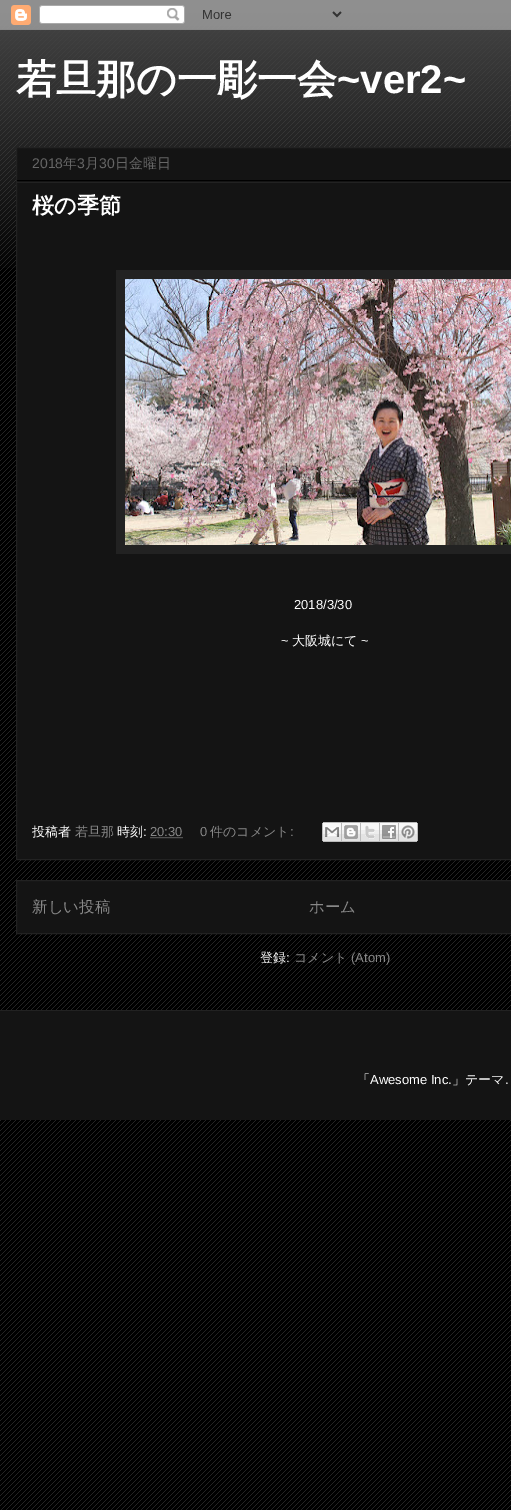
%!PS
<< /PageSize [511 1510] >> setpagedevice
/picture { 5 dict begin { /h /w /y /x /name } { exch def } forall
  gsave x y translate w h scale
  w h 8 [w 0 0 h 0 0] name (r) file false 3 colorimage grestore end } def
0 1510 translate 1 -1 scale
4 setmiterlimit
0 setgray
0 0 511 1510 rectfill
(img1.rgb) 0 13 511 1497 picture
(img2.rgb) 0 0 511 268 picture
(img3.rgb) 0 0 511 30 picture
/WenQuanYiZenHei-Bold [40 0 0 -40 0 0] selectfont
1 setgray
16 93 moveto (若旦那の一彫一会) show
/LiberationSans-Bold [40 0 0 -40 0 0] selectfont
337 93 moveto (~ver2~) show
0.078 setgray
newpath 16.5 147.5 moveto 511.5 147.5 lineto 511.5 859.5 lineto 16.5 859.5 lineto closepath gsave fill grestore
0.133 setgray
stroke
0 setgray
17 180 494 1 rectfill
/LiberationSans-Regular [14 0 0 -14 0 0] selectfont
0.4 setgray
32 168 moveto (2018) show
/WenQuanYiZenHei-Medium [14 0 0 -14 0 0] selectfont
63 168 moveto (年) show
/LiberationSans-Regular [14 0 0 -14 0 0] selectfont
77 168 moveto (3) show
/WenQuanYiZenHei-Medium [14 0 0 -14 0 0] selectfont
85 168 moveto (月) show
/LiberationSans-Regular [14 0 0 -14 0 0] selectfont
99 168 moveto (30) show
/WenQuanYiZenHei-Medium [14 0 0 -14 0 0] selectfont
115 168 moveto (日金曜日) show
0.133 setgray
17 182 494 1 rectfill
/WenQuanYiZenHei-Bold [22 0 0 -22 0 0] selectfont
1 setgray
32 213 moveto (桜の季節) show
0.133 setgray
116 270 395 284 rectfill
(img4.rgb) 125 279 386 266 picture
/LiberationSans-Regular [13 0 0 -13 0 0] selectfont
1 setgray
294 609 moveto (2018/3/30) show
281 645 moveto (~) show
/WenQuanYiZenHei-Medium [13 0 0 -13 0 0] selectfont
292 645 moveto (大阪城にて) show
/LiberationSans-Regular [13 0 0 -13 0 0] selectfont
361 645 moveto (~) show
/WenQuanYiZenHei-Medium [13 0 0 -13 0 0] selectfont
32 836 moveto (投稿者) show
0.533 setgray
75 836 moveto (若旦那) show
1 setgray
117 836 moveto (時刻) show
/LiberationSans-Regular [13 0 0 -13 0 0] selectfont
143 836 moveto (:) show
0.533 setgray
150 836 moveto (20:30) show
[1 1] 0 setdash
newpath 150.5 837.5 moveto 183 837.5 lineto stroke
200 836 moveto (0) show
/WenQuanYiZenHei-Medium [13 0 0 -13 0 0] selectfont
210 836 moveto (件のコメント) show
/LiberationSans-Regular [13 0 0 -13 0 0] selectfont
290 836 moveto (:) show
(img5.rgb) 322 822 20 20 picture
(img6.rgb) 342 822 19 20 picture
(img7.rgb) 361 822 19 20 picture
(img8.rgb) 380 822 19 20 picture
(img9.rgb) 399 822 19 20 picture
0.078 setgray
newpath 16.5 880.5 moveto 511.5 880.5 lineto 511.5 933.5 lineto 16.5 933.5 lineto closepath gsave fill grestore
0.133 setgray
[] 0 setdash
stroke
/WenQuanYiZenHei-Medium [15.5 0 0 -15.5 0 0] selectfont
0.533 setgray
32 912 moveto (新しい投稿) show
309 912 moveto (ホーム) show
/WenQuanYiZenHei-Medium [13 0 0 -13 0 0] selectfont
1 setgray
260 962 moveto (登録) show
/LiberationSans-Regular [13 0 0 -13 0 0] selectfont
286 962 moveto (:) show
/WenQuanYiZenHei-Medium [13 0 0 -13 0 0] selectfont
0.533 setgray
294 962 moveto (コメント) show
/LiberationSans-Regular [13 0 0 -13 0 0] selectfont
351 962 moveto (\(Atom\)) show
0.078 setgray
0 1011 511 109 rectfill
0.133 setgray
0 1010 511 1 rectfill
/WenQuanYiZenHei-Medium [13 0 0 -13 0 0] selectfont
1 setgray
357 1084 moveto (「) show
/LiberationSans-Regular [13 0 0 -13 0 0] selectfont
370 1084 moveto (Awesome Inc.) show
/WenQuanYiZenHei-Medium [13 0 0 -13 0 0] selectfont
452 1084 moveto (」テーマ) show
/LiberationSans-Regular [13 0 0 -13 0 0] selectfont
505 1084 moveto (.) show
showpage
